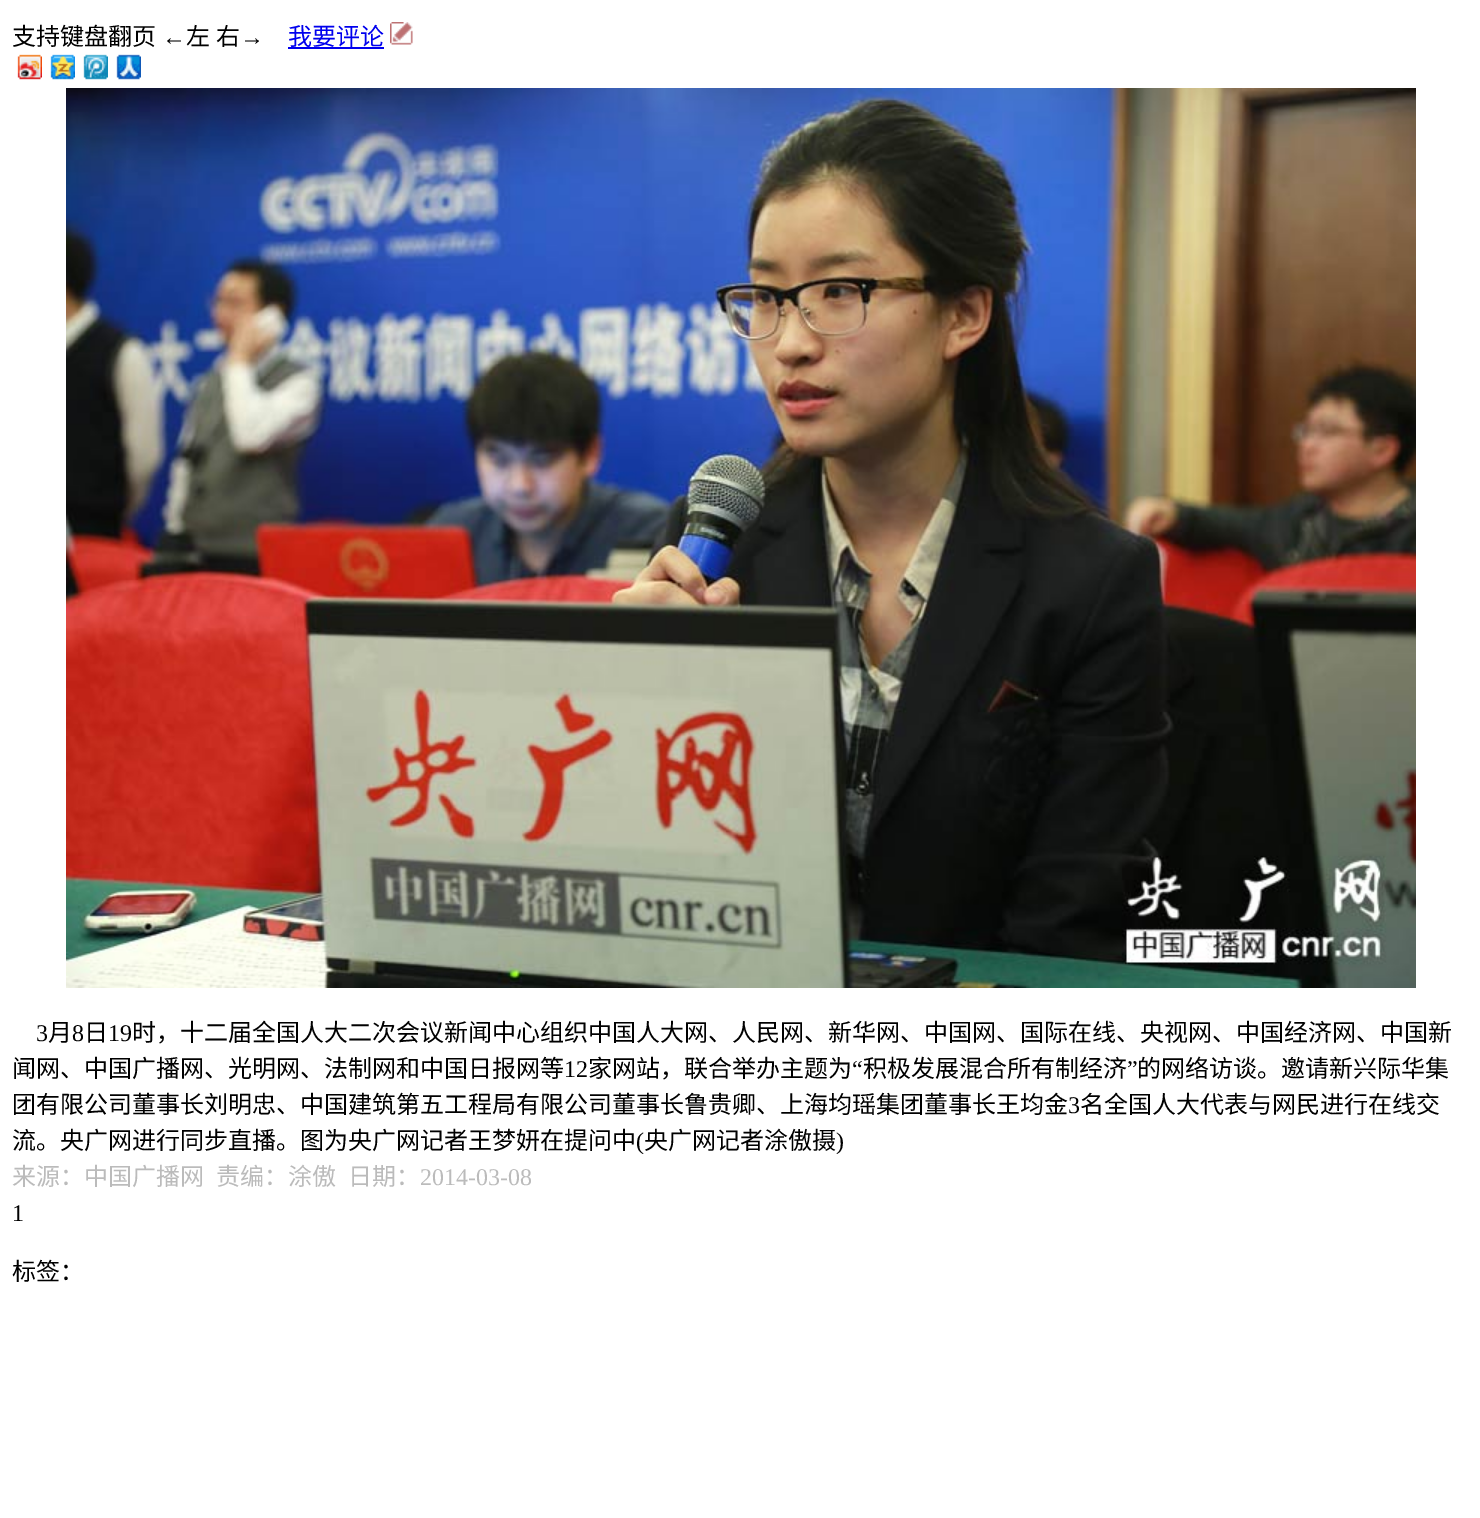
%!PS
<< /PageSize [1480 1518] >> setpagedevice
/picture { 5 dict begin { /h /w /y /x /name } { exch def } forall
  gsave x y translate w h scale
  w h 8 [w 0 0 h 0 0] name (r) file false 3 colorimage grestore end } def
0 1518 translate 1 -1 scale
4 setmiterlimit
1 setgray
0 0 1480 1518 rectfill
/NotoSansCJKSC-Regular [24 0 0 -24 0 0] selectfont
0 setgray
12 45 moveto (支持键盘翻页) show
/LiberationSerif-Regular [24 0 0 -24 0 0] selectfont
162 45 moveto (←) show
/NotoSansCJKSC-Regular [24 0 0 -24 0 0] selectfont
186 45 moveto 1 0 32 (左 右) widthshow
/LiberationSerif-Regular [24 0 0 -24 0 0] selectfont
240 45 moveto (→) show
/NotoSansCJKSC-Regular [24 0 0 -24 0 0] selectfont
0 0 0.933 setrgbcolor
288 45 moveto (我要评论) show
288 47 96 2 rectfill
(img1.rgb) 390 22 23 23 picture
(img2.rgb) 17 54 25 26 picture
(img3.rgb) 50 54 25 26 picture
(img4.rgb) 83 54 25 26 picture
(img5.rgb) 116 54 25 26 picture
(img6.rgb) 66 88 1350 900 picture
/LiberationSerif-Regular [24 0 0 -24 0 0] selectfont
0 setgray
36 1041 moveto (3) show
/NotoSansCJKSC-Regular [24 0 0 -24 0 0] selectfont
48 1041 moveto (月) show
/LiberationSerif-Regular [24 0 0 -24 0 0] selectfont
72 1041 moveto (8) show
/NotoSansCJKSC-Regular [24 0 0 -24 0 0] selectfont
84 1041 moveto (日) show
/LiberationSerif-Regular [24 0 0 -24 0 0] selectfont
108 1041 moveto (19) show
/NotoSansCJKSC-Regular [24 0 0 -24 0 0] selectfont
132 1041 moveto (时，十二届全国人大二次会议新闻中心组织中国人大网、人民网、新华网、中国网、国际在线、央视网、中国经济网、中国新) show
12 1077 moveto (闻网、中国广播网、光明网、法制网和中国日报网等) show
/LiberationSerif-Regular [24 0 0 -24 0 0] selectfont
564 1077 moveto (12) show
/NotoSansCJKSC-Regular [24 0 0 -24 0 0] selectfont
588 1077 moveto (家网站，联合举办主题为) show
/LiberationSerif-Regular [24 0 0 -24 0 0] selectfont
852 1077 moveto (“) show
/NotoSansCJKSC-Regular [24 0 0 -24 0 0] selectfont
863 1077 moveto (积极发展混合所有制经济) show
/LiberationSerif-Regular [24 0 0 -24 0 0] selectfont
1127 1077 moveto (”) show
/NotoSansCJKSC-Regular [24 0 0 -24 0 0] selectfont
1137 1077 moveto (的网络访谈。邀请新兴际华集) show
12 1113 moveto (团有限公司董事长刘明忠、中国建筑第五工程局有限公司董事长鲁贵卿、上海均瑶集团董事长王均金) show
/LiberationSerif-Regular [24 0 0 -24 0 0] selectfont
1068 1113 moveto (3) show
/NotoSansCJKSC-Regular [24 0 0 -24 0 0] selectfont
1080 1113 moveto (名全国人大代表与网民进行在线交) show
12 1149 moveto (流。央广网进行同步直播。图为央广网记者王梦妍在提问中) show
/LiberationSerif-Regular [24 0 0 -24 0 0] selectfont
636 1149 moveto (\() show
/NotoSansCJKSC-Regular [24 0 0 -24 0 0] selectfont
644 1149 moveto (央广网记者涂傲摄) show
/LiberationSerif-Regular [24 0 0 -24 0 0] selectfont
836 1149 moveto (\)) show
/NotoSansCJKSC-Regular [24 0 0 -24 0 0] selectfont
0.733 setgray
12 1185 moveto (来源：中国广播网) show
216 1185 moveto (责编：涂傲) show
348 1185 moveto (日期：) show
/LiberationSerif-Regular [24 0 0 -24 0 0] selectfont
420 1185 moveto (2014-03-08) show
0 setgray
12 1221 moveto (1) show
/NotoSansCJKSC-Regular [24 0 0 -24 0 0] selectfont
12 1280 moveto (标签：) show
showpage
